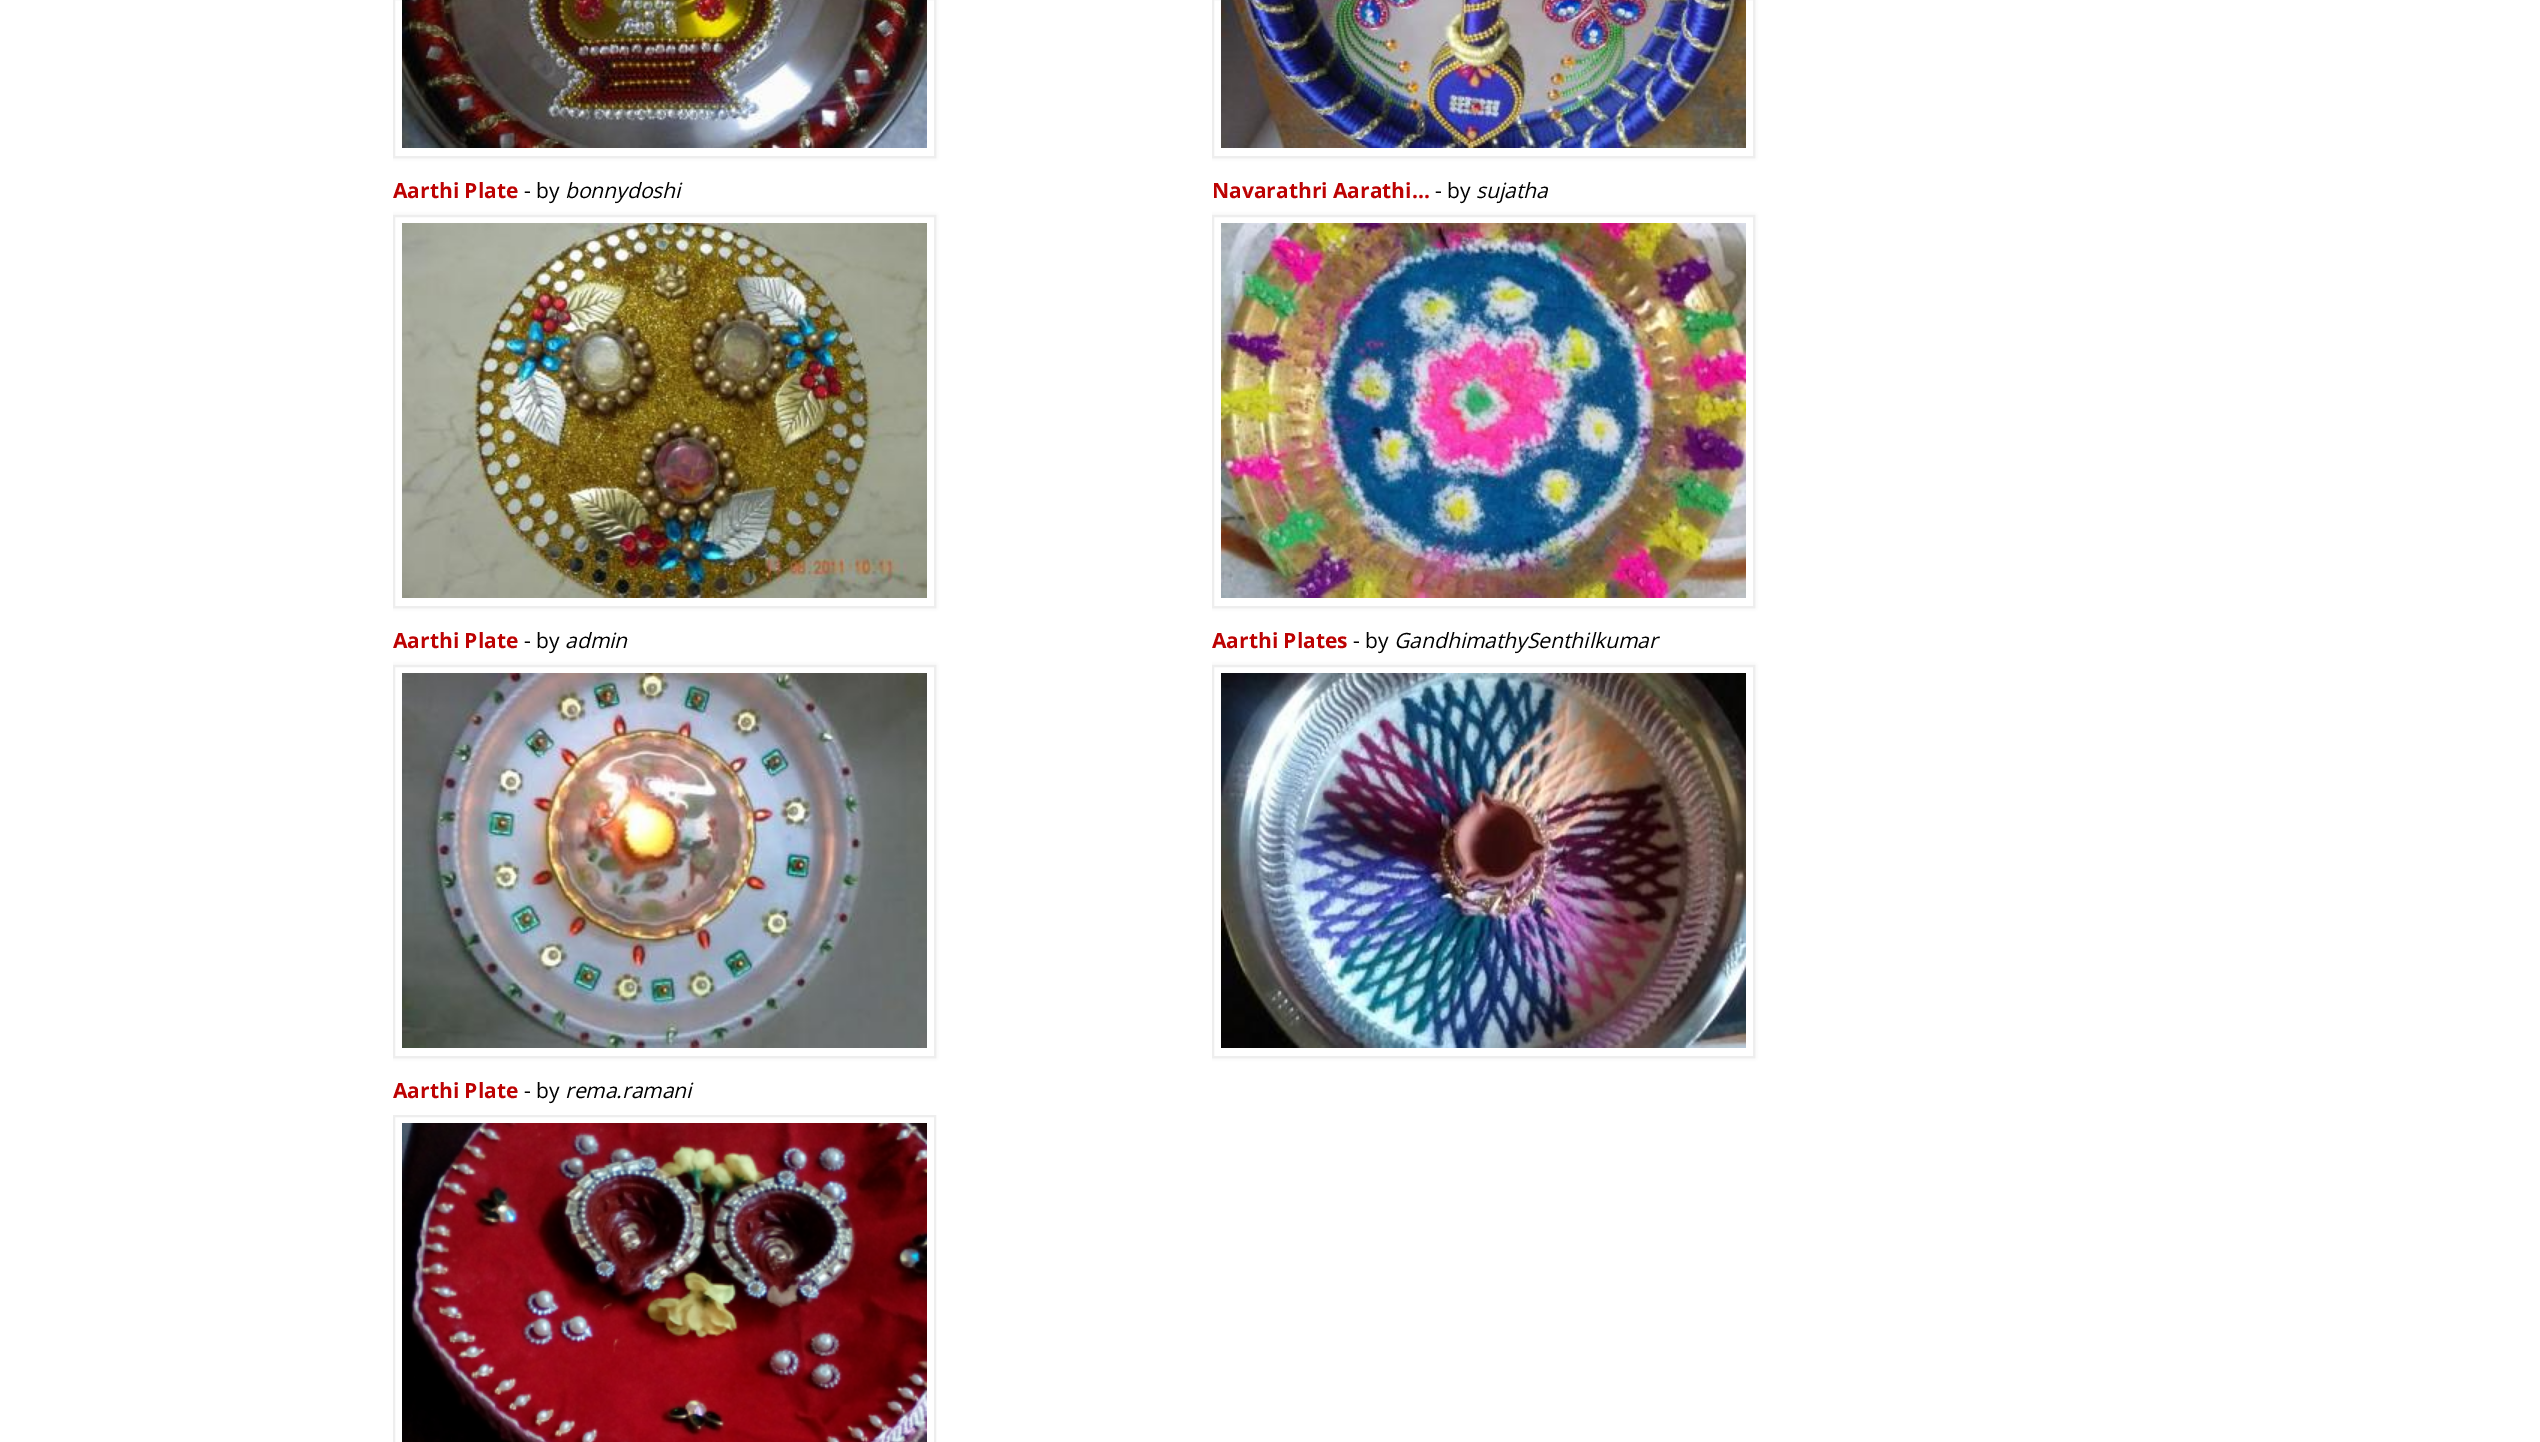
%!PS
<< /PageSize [2540 1442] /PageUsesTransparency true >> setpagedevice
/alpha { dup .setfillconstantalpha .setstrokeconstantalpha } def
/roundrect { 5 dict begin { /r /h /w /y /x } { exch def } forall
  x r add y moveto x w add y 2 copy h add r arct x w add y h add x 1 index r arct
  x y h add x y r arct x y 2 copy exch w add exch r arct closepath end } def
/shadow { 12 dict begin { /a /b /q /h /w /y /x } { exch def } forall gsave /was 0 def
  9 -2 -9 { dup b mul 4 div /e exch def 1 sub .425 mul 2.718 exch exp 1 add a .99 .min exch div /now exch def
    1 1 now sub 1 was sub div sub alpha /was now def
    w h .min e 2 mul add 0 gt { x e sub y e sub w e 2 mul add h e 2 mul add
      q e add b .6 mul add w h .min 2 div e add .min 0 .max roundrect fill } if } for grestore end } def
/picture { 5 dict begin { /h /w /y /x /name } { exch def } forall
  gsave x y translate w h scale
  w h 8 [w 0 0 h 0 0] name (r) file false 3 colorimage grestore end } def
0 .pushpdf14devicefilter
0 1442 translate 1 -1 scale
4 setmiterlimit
1 setgray
0 0 2540 1442 rectfill
gsave
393 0 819 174 rectclip
0.933 setgray
393 -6 543 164 0 2 1 shadow
grestore
newpath 394 -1 moveto 935 -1 lineto 935 157 lineto 394 157 lineto closepath gsave fill grestore
0.933 setgray
2 setlinewidth
stroke
(img1.rgb) 402 0 525 148 picture
gsave
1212 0 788 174 rectclip
1212 -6 543 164 0 2 1 shadow
grestore
1 setgray
newpath 1213 -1 moveto 1754 -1 lineto 1754 157 lineto 1213 157 lineto closepath gsave fill grestore
0.933 setgray
stroke
(img2.rgb) 1221 0 525 148 picture
/OpenSans-Bold [21 0 0 -21 0 0] selectfont
0.741 0.008 0.008 setrgbcolor
393 198 moveto (Aarthi Plate) show
/OpenSans-Regular [21 0 0 -21 0 0] selectfont
0 setgray
524 198 moveto (- by) show
/OpenSans-Italic [21 0 0 -21 0 0] selectfont
565 198 moveto (bonnydoshi) show
gsave
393 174 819 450 rectclip
0.933 setgray
393 215 543 393 0 2 1 shadow
grestore
1 setgray
newpath 394 216 moveto 935 216 lineto 935 607 lineto 394 607 lineto closepath gsave fill grestore
0.933 setgray
stroke
(img3.rgb) 402 223 525 375 picture
/OpenSans-Bold [21 0 0 -21 0 0] selectfont
0.741 0.008 0.008 setrgbcolor
1212 198 moveto (Navarathri Aarathi...) show
/OpenSans-Regular [21 0 0 -21 0 0] selectfont
0 setgray
1435 198 moveto (- by) show
/OpenSans-Italic [21 0 0 -21 0 0] selectfont
1476 198 moveto (sujatha) show
gsave
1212 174 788 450 rectclip
0.933 setgray
1212 215 543 393 0 2 1 shadow
grestore
1 setgray
newpath 1213 216 moveto 1754 216 lineto 1754 607 lineto 1213 607 lineto closepath gsave fill grestore
0.933 setgray
stroke
(img4.rgb) 1221 223 525 375 picture
/OpenSans-Bold [21 0 0 -21 0 0] selectfont
0.741 0.008 0.008 setrgbcolor
393 648 moveto (Aarthi Plate) show
/OpenSans-Regular [21 0 0 -21 0 0] selectfont
0 setgray
524 648 moveto (- by) show
/OpenSans-Italic [21 0 0 -21 0 0] selectfont
565 648 moveto (admin) show
gsave
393 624 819 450 rectclip
0.933 setgray
393 665 543 393 0 2 1 shadow
grestore
1 setgray
newpath 394 666 moveto 935 666 lineto 935 1057 lineto 394 1057 lineto closepath gsave fill grestore
0.933 setgray
stroke
(img5.rgb) 402 673 525 375 picture
/OpenSans-Bold [21 0 0 -21 0 0] selectfont
0.741 0.008 0.008 setrgbcolor
1212 648 moveto (Aarthi Plates) show
/OpenSans-Regular [21 0 0 -21 0 0] selectfont
0 setgray
1353 648 moveto (- by) show
/OpenSans-Italic [21 0 0 -21 0 0] selectfont
1394 648 moveto (GandhimathySenthilkumar) show
gsave
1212 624 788 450 rectclip
0.933 setgray
1212 665 543 393 0 2 1 shadow
grestore
1 setgray
newpath 1213 666 moveto 1754 666 lineto 1754 1057 lineto 1213 1057 lineto closepath gsave fill grestore
0.933 setgray
stroke
(img6.rgb) 1221 673 525 375 picture
/OpenSans-Bold [21 0 0 -21 0 0] selectfont
0.741 0.008 0.008 setrgbcolor
393 1098 moveto (Aarthi Plate) show
/OpenSans-Regular [21 0 0 -21 0 0] selectfont
0 setgray
524 1098 moveto (- by) show
/OpenSans-Italic [21 0 0 -21 0 0] selectfont
565 1098 moveto (rema.ramani) show
0.933 setgray
394 1116 541 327 rectstroke
(img7.rgb) 402 1123 525 319 picture
.poppdf14devicefilter showpage
